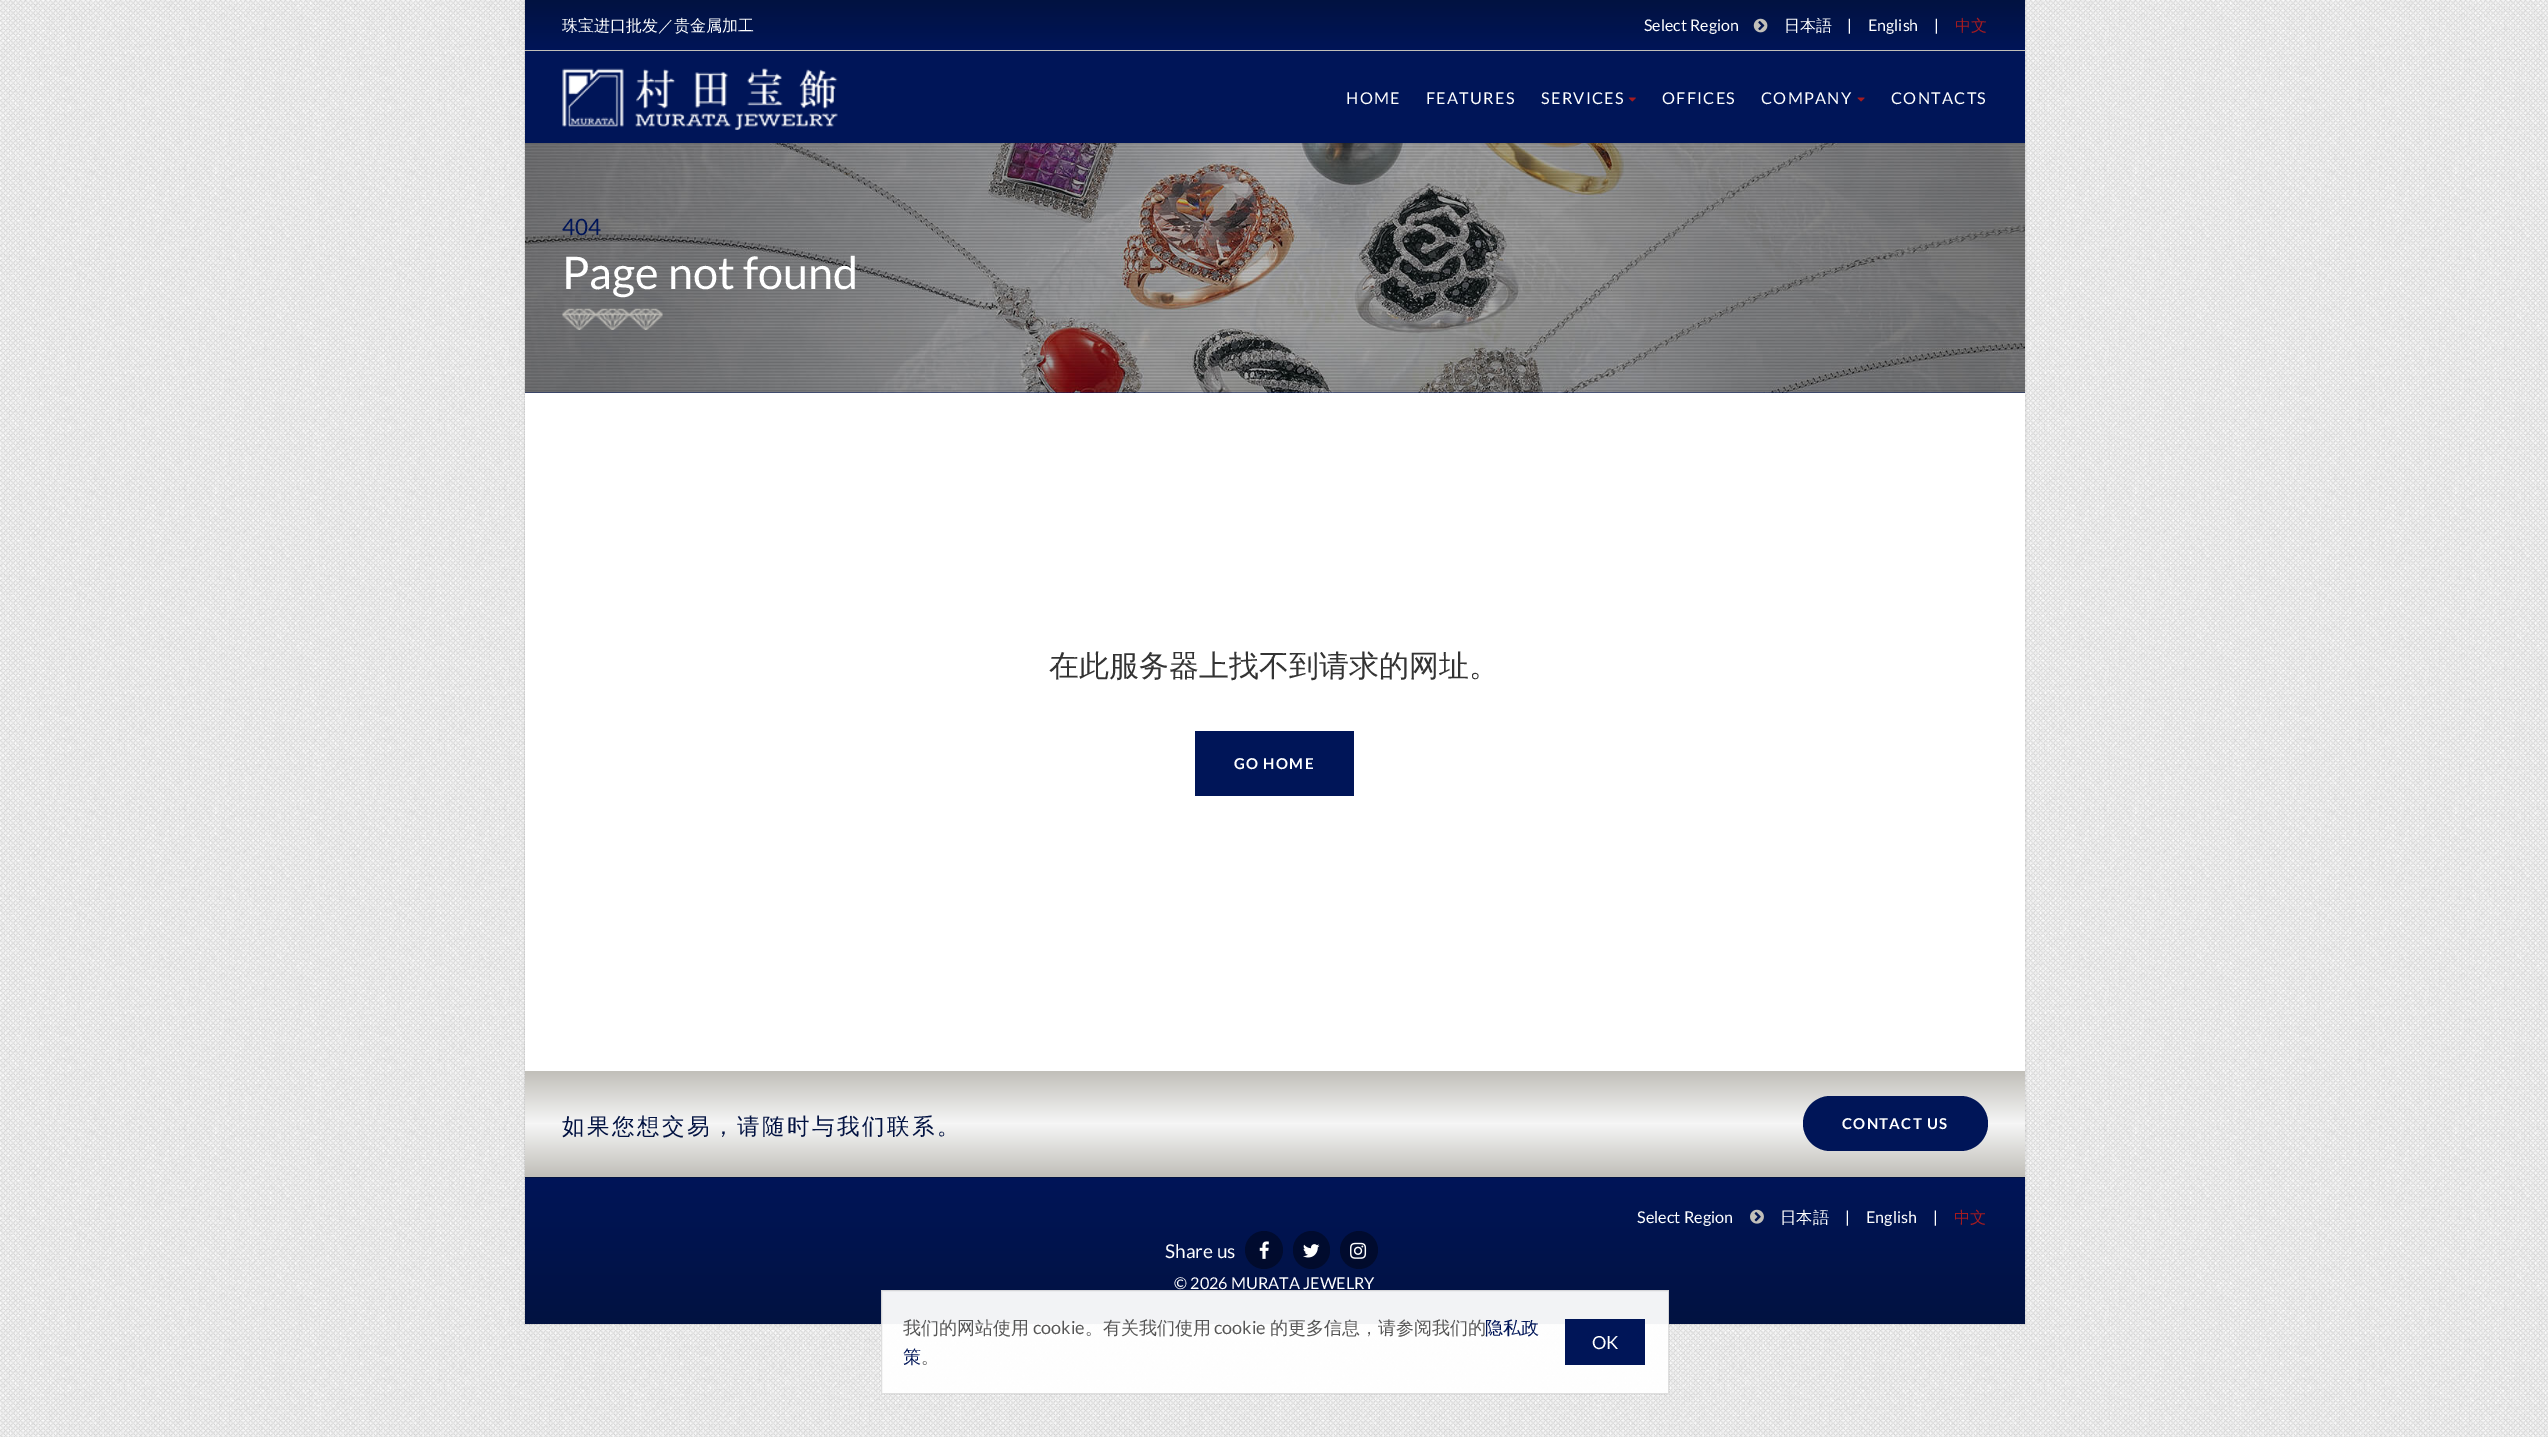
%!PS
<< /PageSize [2548 1437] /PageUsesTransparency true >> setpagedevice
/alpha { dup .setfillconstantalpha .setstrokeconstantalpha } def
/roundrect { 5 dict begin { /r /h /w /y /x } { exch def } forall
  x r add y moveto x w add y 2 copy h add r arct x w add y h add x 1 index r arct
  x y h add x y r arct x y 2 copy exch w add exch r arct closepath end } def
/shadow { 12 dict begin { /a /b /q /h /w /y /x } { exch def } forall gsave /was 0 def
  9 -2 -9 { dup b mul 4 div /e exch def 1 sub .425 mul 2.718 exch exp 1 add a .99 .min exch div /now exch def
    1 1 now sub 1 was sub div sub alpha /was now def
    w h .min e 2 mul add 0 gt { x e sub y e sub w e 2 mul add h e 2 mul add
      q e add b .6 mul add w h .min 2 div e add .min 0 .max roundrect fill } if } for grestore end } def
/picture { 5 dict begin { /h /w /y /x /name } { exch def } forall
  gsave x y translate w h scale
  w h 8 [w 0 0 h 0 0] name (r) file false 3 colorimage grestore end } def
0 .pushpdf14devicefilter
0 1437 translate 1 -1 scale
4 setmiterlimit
1 setgray
0 0 2548 1437 rectfill
(img1.rgb) 0 0 2548 1437 picture
0 setgray
525 0 1500 1324 0 1 0.2 shadow
1 setgray
525 393 1500 678 rectfill
gsave newpath 525 0 moveto 2025 0 lineto 2025 50 lineto 525 50 lineto closepath clip newpath
<< /ShadingType 2 /ColorSpace /DeviceRGB /Coords [1275 0 1275 50] /Extend [true true] /Function << /FunctionType 2 /Domain [0 1] /C0 [0.008 0.071 0.255] /C1 [0 0.082 0.345] /N 1 >> >> shfill grestore
0.757 0.749 0.725 setrgbcolor
525 50 1500 1 rectfill
/WenQuanYiZenHei-Medium [16 0 0 -16 0 0] selectfont
1 setgray
562 31 moveto (珠宝进口批发／贵金属加工) show
/Lato-Regular [16 0 0 -16 0 0] selectfont
1644 31 moveto (Select Region) show
(img2.rgb) 1753 18 15 15 picture
/WenQuanYiZenHei-Medium [16 0 0 -16 0 0] selectfont
1784 31 moveto (日本語) show
/Lato-Regular [16 0 0 -16 0 0] selectfont
1847 31 moveto (|) show
1868 31 moveto (English) show
1934 31 moveto (|) show
/WenQuanYiZenHei-Medium [16 0 0 -16 0 0] selectfont
0.647 0.106 0.125 setrgbcolor
1955 31 moveto (中文) show
0 0.082 0.345 setrgbcolor
525 51 1500 92 rectfill
(img3.rgb) 562 68 276 62 picture
/Lato-Regular [16.25 0 0 -16.25 0 0] selectfont
1 setgray
1346 104 moveto 1.25 0 (HOME) ashow
1426 104 moveto 1.25 0 (FEATURES) ashow
1541 104 moveto 1.25 0 (SERVICES) ashow
(img4.rgb) 1628 97 8 5 picture
1662 104 moveto 1.25 0 (OFFICES) ashow
1761 104 moveto 1.25 0 (COMPANY) ashow
(img5.rgb) 1857 97 8 5 picture
1891 104 moveto 1.25 0 (CONTACTS) ashow
0 0.082 0.345 setrgbcolor
525 392 1500 1 rectfill
(img6.rgb) 525 143 1500 250 picture
/Lato-Regular [22.5 0 0 -22.5 0 0] selectfont
562 235 moveto (404) show
/Lato-Regular [45 0 0 -45 0 0] selectfont
1 setgray
562 289 moveto (Page not found) show
(img7.rgb) 562 308 101 22 picture
/WenQuanYiZenHei-Medium [30 0 0 -30 0 0] selectfont
0.2 setgray
1049 676 moveto (在此服务器上找不到请求的网址。) show
0 0.082 0.345 setrgbcolor
1195 731 159 65 rectfill
/Lato-Bold [15 0 0 -15 0 0] selectfont
1 setgray
1234 769 moveto 1.25 0 (GO HOME) ashow
gsave newpath 525 1071 moveto 2025 1071 lineto 2025 1176 lineto 525 1176 lineto closepath clip newpath
<< /ShadingType 2 /ColorSpace /DeviceRGB /Coords [1275 1071 1275 1176] /Extend [true true] /Function << /FunctionType 3 /Domain [0 1] /Functions [<< /FunctionType 2 /Domain [0 1] /C0 [0.757 0.749 0.725] /C1 [0.965 0.965 0.965] /N 1 >> << /FunctionType 2 /Domain [0 1] /C0 [0.965 0.965 0.965] /C1 [0.757 0.749 0.725] /N 1 >>] /Bounds [0.5] /Encode [0 1 0 1] >> >> shfill grestore
/WenQuanYiZenHei-Medium [22.5 0 0 -22.5 0 0] selectfont
0.008 0.071 0.255 setrgbcolor
562 1134 moveto 2.5 0 (如果您想交易，请随时与我们联系。) ashow
0 0.082 0.345 setrgbcolor
1803 1096 185 55 27.5 roundrect fill
/Lato-Bold [15 0 0 -15 0 0] selectfont
1 setgray
1842 1129 moveto 1.25 0 (CONTACT US) ashow
gsave newpath 525 1177 moveto 2025 1177 lineto 2025 1178 lineto 525 1178 lineto closepath clip newpath
<< /ShadingType 2 /ColorSpace /DeviceRGB /Coords [1275 1031 1275 1178] /Extend [true true] /Function << /FunctionType 2 /Domain [0 1] /C0 [0 0.082 0.345] /C1 [0.008 0.071 0.255] /N 1 >> >> shfill grestore
gsave newpath 525 1178 moveto 2025 1178 lineto 2025 1324 lineto 525 1324 lineto closepath clip newpath
<< /ShadingType 2 /ColorSpace /DeviceRGB /Coords [1275 1177 1275 1324] /Extend [true true] /Function << /FunctionType 2 /Domain [0 1] /C0 [0 0.082 0.345] /C1 [0.008 0.071 0.255] /N 1 >> >> shfill grestore
0.757 0.749 0.725 setrgbcolor
525 1176 1500 1 rectfill
/Lato-Regular [16.25 0 0 -16.25 0 0] selectfont
1 setgray
1637 1223 moveto (Select Region) show
(img8.rgb) 1750 1209 14 15 picture
/WenQuanYiZenHei-Medium [16.25 0 0 -16.25 0 0] selectfont
1780 1223 moveto (日本語) show
/Lato-Regular [16.25 0 0 -16.25 0 0] selectfont
1845 1223 moveto (|) show
1866 1223 moveto (English) show
1933 1223 moveto (|) show
/WenQuanYiZenHei-Medium [16.25 0 0 -16.25 0 0] selectfont
0.647 0.106 0.125 setrgbcolor
1954 1223 moveto (中文) show
/Lato-Regular [19 0 0 -19 0 0] selectfont
1 setgray
1165 1258 moveto (Share us) show
0.4 alpha
0 setgray
newpath 1264 1250 19 0 360 arc closepath fill
1 alpha
(img9.rgb) 1259 1241 10 18 picture
0.4 alpha
1293 1231 37 38 18.5 roundrect fill
1 alpha
(img10.rgb) 1303 1244 17 14 picture
0.4 alpha
newpath 1359 1250 19 0 360 arc closepath fill
1 alpha
(img11.rgb) 1350 1242 17 17 picture
/Lato-Regular [16.25 0 0 -16.25 0 0] selectfont
1 setgray
1174 1289 moveto (© 2026 MURATA JEWELRY) show
0.95 alpha
881 1290 788 104 rectfill
0.12 alpha
0 setgray
881.5 1290.5 787 103 rectstroke
/WenQuanYiZenHei-Medium [18 0 0 -18 0 0] selectfont
1 alpha
0.337 setgray
903 1334 moveto (我们的网站使用) show
/Lato-Regular [18 0 0 -18 0 0] selectfont
1033 1334 moveto (cookie) show
/WenQuanYiZenHei-Medium [18 0 0 -18 0 0] selectfont
1085 1334 moveto (。有关我们使用) show
/Lato-Regular [18 0 0 -18 0 0] selectfont
1214 1334 moveto (cookie) show
/WenQuanYiZenHei-Medium [18 0 0 -18 0 0] selectfont
1270 1334 moveto (的更多信息，请参阅我们的) show
0 0.082 0.345 setrgbcolor
1485 1334 moveto (隐私政) show
903 1363 moveto (策) show
0.337 setgray
921 1363 moveto (。) show
0 0.082 0.345 setrgbcolor
1565 1319 80 46 rectfill
/Lato-Regular [18 0 0 -18 0 0] selectfont
1 setgray
1592 1349 moveto (OK) show
.poppdf14devicefilter showpage
